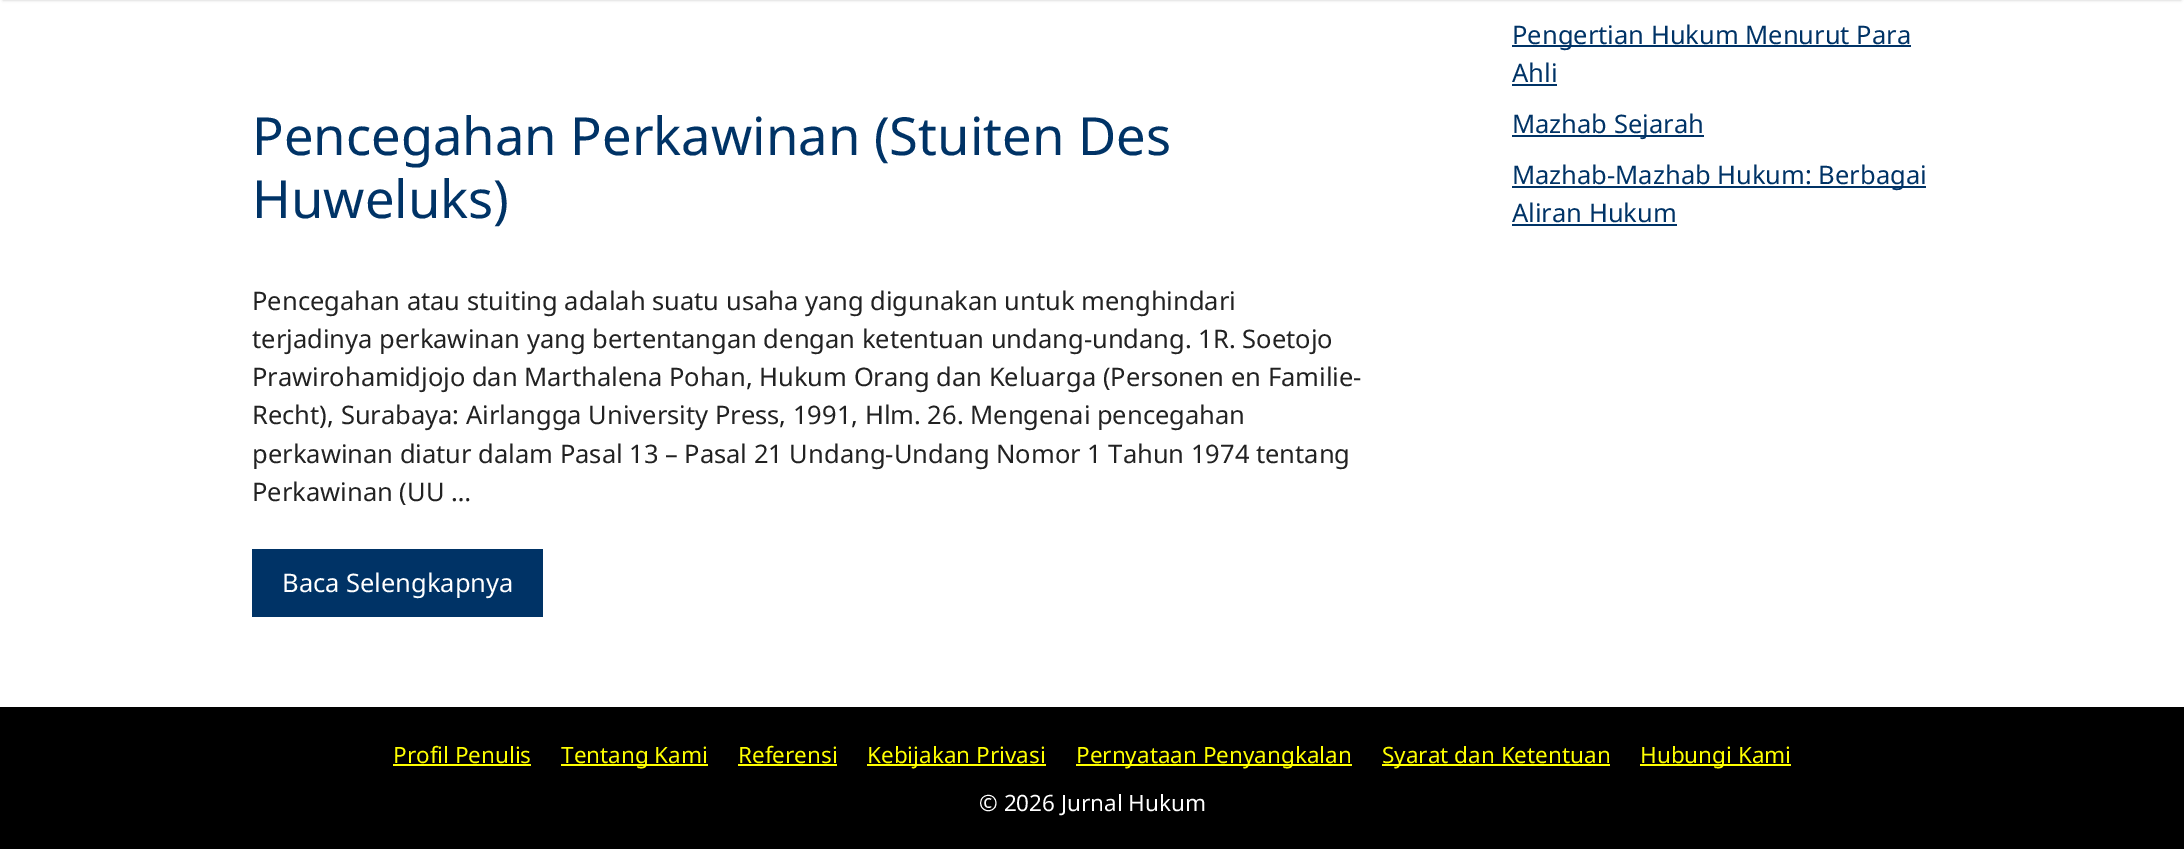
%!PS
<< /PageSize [2184 849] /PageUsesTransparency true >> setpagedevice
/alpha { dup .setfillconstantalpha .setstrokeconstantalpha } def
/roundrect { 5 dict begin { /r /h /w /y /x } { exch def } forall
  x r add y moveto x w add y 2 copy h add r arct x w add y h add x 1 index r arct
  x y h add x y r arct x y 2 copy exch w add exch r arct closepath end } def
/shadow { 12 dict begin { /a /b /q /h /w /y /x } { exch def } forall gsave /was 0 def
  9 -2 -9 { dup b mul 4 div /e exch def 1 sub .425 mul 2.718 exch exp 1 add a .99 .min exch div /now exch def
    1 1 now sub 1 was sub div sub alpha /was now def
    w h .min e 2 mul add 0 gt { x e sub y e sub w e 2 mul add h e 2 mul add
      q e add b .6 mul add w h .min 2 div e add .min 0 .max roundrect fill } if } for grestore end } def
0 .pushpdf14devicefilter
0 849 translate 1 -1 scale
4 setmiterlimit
1 setgray
0 0 2184 849 rectfill
0 setgray
3 -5 2178 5 0 1.5 0.2 shadow
/NotoSans-Regular [52.5 0 0 -52.5 0 0] selectfont
0 0.2 0.4 setrgbcolor
252 155 moveto (Pencegahan Perkawinan \(Stuiten Des) show
252 218 moveto (Huweluks\)) show
/NotoSans-Regular [25.5 0 0 -25.5 0 0] selectfont
0.133 setgray
252 310 moveto (Pencegahan atau stuiting adalah suatu usaha yang digunakan untuk menghindari) show
252 348 moveto (terjadinya perkawinan yang bertentangan dengan ketentuan undang-undang. 1R. Soetojo) show
252 386 moveto (Prawirohamidjojo dan Marthalena Pohan, Hukum Orang dan Keluarga \(Personen en Familie-) show
252 424 moveto (Recht\), Surabaya: Airlangga University Press, 1991, Hlm. 26. Mengenai pencegahan) show
252 463 moveto (perkawinan diatur dalam Pasal 13 – Pasal 21 Undang-Undang Nomor 1 Tahun 1974 tentang) show
252 501 moveto (Perkawinan \(UU …) show
0 0.2 0.4 setrgbcolor
252 549 291 68 rectfill
1 setgray
282 592 moveto (Baca Selengkapnya) show
0 0.2 0.4 setrgbcolor
1512 45 399 2 rectfill
1512 44 moveto (Pengertian Hukum Menurut Para) show
1512 82 moveto (Ahli) show
1512 84 45 2 rectfill
1512 135 192 2 rectfill
1512 133 moveto (Mazhab Sejarah) show
1512 186 414 2 rectfill
1512 184 moveto (Mazhab-Mazhab Hukum: Berbagai) show
1512 222 moveto (Aliran Hukum) show
1512 224 165 2 rectfill
0 setgray
0 707 2184 142 rectfill
/NotoSans-Regular [22.5 0 0 -22.5 0 0] selectfont
1 1 0 setrgbcolor
393 763 moveto (Profil Penulis) show
393 764 138 2 rectfill
561 764 147 2 rectfill
561 763 moveto (Tentang Kami) show
738 763 moveto (Referensi) show
738 764 99 2 rectfill
867 764 179 2 rectfill
867 763 moveto (Kebijakan Privasi) show
1076 764 276 2 rectfill
1076 763 moveto (Pernyataan Penyangkalan) show
1382 764 228 2 rectfill
1382 763 moveto (Syarat dan Ketentuan) show
1640 764 151 2 rectfill
1640 763 moveto (Hubungi Kami) show
1 setgray
979 811 moveto (© 2026 Jurnal Hukum) show
.poppdf14devicefilter showpage
